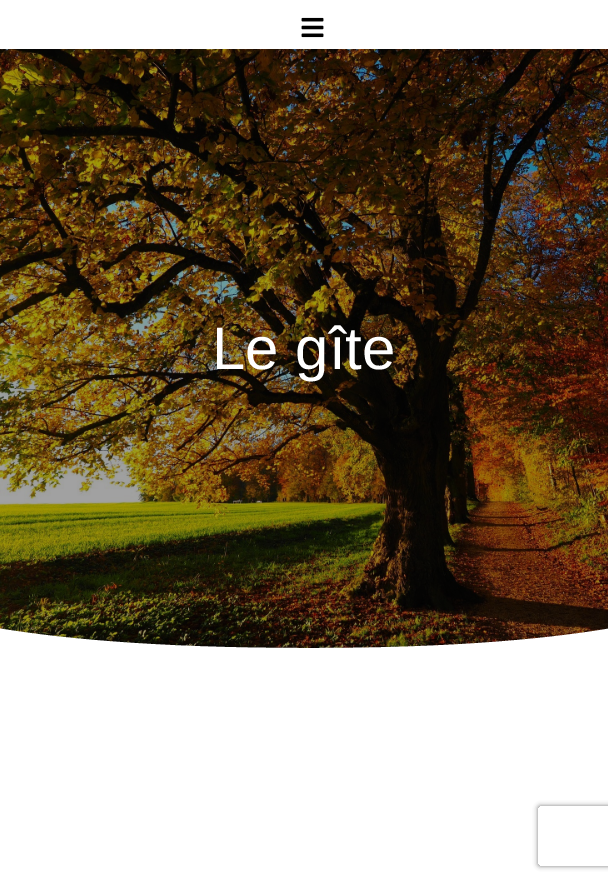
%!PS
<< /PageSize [608 880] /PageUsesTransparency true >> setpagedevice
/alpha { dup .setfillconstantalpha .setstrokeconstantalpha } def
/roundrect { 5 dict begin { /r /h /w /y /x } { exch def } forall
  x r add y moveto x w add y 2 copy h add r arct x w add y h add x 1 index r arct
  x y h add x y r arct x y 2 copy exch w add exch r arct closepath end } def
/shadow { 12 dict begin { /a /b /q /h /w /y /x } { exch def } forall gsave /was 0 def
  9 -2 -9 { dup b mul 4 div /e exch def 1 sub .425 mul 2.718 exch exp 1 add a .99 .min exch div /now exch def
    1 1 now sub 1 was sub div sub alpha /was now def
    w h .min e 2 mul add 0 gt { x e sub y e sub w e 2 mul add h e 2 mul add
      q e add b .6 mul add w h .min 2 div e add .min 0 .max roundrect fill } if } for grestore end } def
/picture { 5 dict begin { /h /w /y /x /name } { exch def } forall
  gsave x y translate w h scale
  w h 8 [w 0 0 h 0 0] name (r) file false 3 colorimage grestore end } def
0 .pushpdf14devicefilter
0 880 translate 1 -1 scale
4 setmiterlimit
1 setgray
0 0 608 880 rectfill
(img1.rgb) 301 17 23 21 picture
(img2.rgb) 0 49 608 599 picture
/LiberationSans-Regular [60 0 0 -60 0 0] selectfont
212 369 moveto (Le gîte) show
newpath 304 648 moveto -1 648 -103 607 -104 596 curveto -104 650 lineto 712 650 lineto 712 597 lineto 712 606 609 649 304 648 curveto closepath fill
gsave
newpath 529 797 moveto 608 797 lineto 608 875 lineto 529 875 lineto closepath 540 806 moveto 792 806 lineto 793 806 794 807 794 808 curveto 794 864 lineto 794 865 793 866 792 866 curveto 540 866 lineto 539 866 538 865 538 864 curveto 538 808 lineto 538 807 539 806 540 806 curveto closepath eoclip newpath
0.502 setgray
538 806 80 60 2 2.5 1 shadow
grestore
.poppdf14devicefilter showpage
